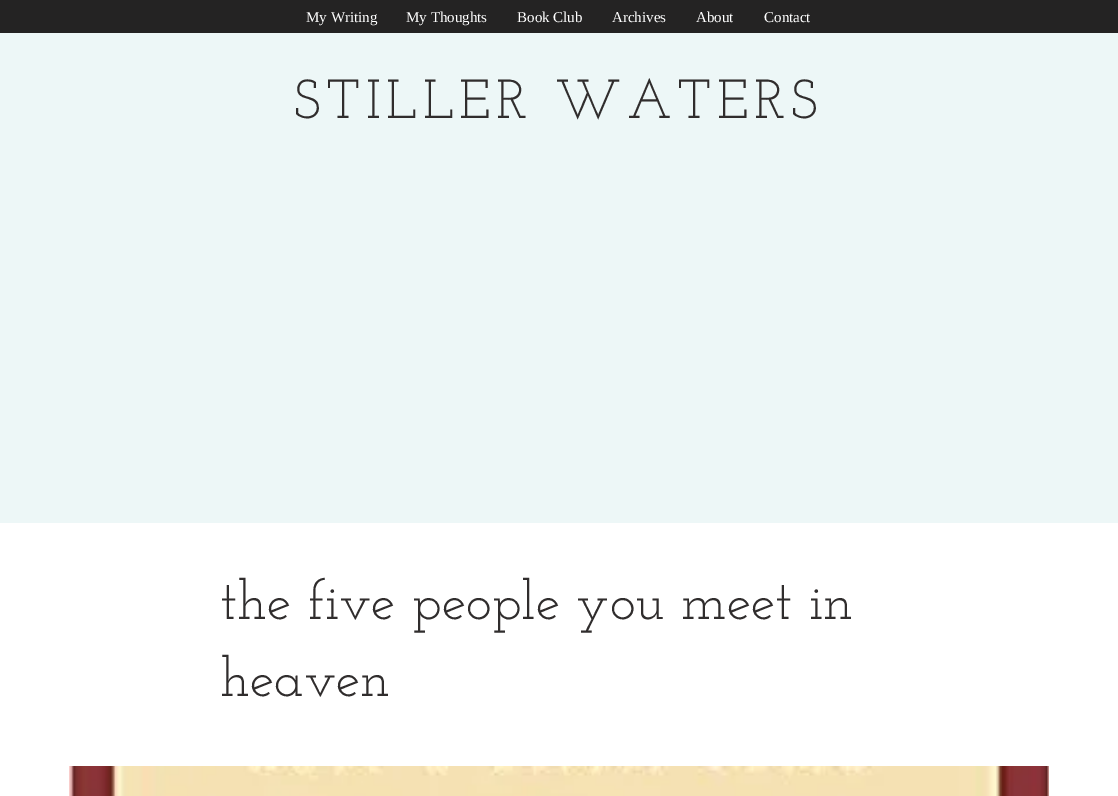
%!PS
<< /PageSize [1118 796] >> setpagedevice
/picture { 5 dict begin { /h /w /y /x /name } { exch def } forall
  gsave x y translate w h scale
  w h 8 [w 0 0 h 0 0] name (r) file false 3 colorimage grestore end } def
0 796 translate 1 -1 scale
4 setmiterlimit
1 setgray
0 0 1118 796 rectfill
0.141 0.137 0.137 setrgbcolor
0 0 1118 33 rectfill
/LiberationSerif-Regular [15 0 0 -15 0 0] selectfont
1 setgray
306 22 moveto (My Writing) show
406 22 moveto (My Thoughts) show
517 22 moveto (Book Club) show
612 22 moveto (Archives) show
696 22 moveto (About) show
764 22 moveto (Contact) show
0.929 0.969 0.969 setrgbcolor
0 33 1118 490 rectfill
/JosefinSlab-Regular [55 0 0 -55 0 0] selectfont
0.188 0.176 0.176 setrgbcolor
294 118 moveto 5.5 0 (STILLER WATERS) ashow
220 619 moveto (the five people you meet in) show
220 696 moveto (heaven) show
(img1.rgb) 69 766 980 30 picture
showpage
